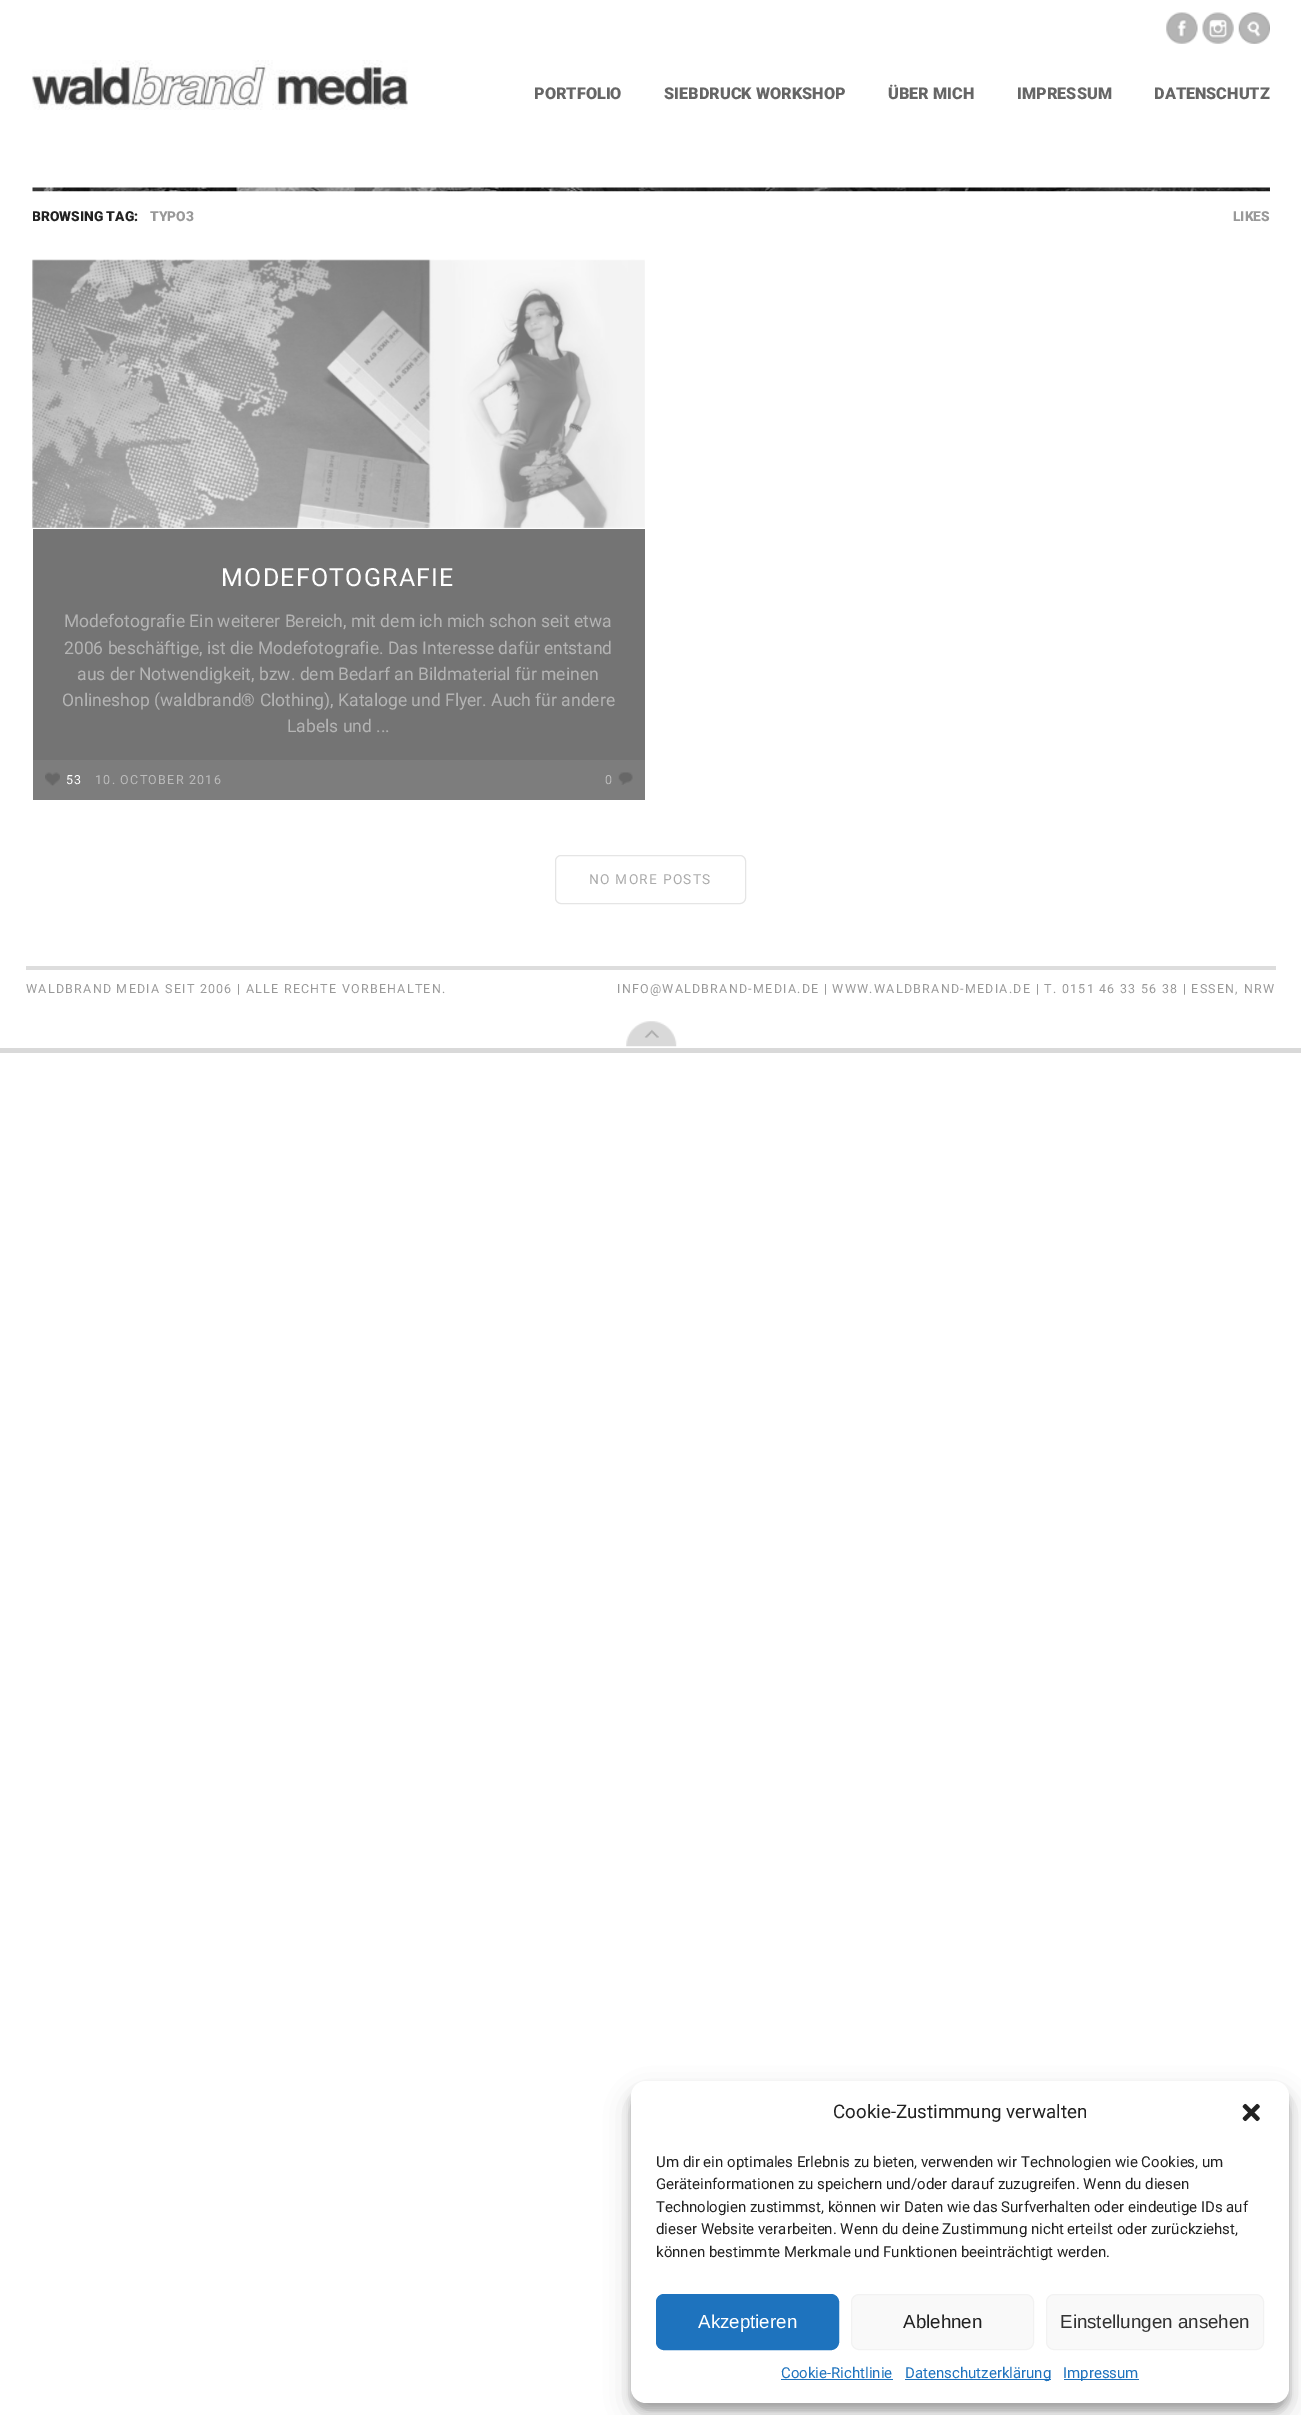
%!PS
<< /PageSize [1301 2415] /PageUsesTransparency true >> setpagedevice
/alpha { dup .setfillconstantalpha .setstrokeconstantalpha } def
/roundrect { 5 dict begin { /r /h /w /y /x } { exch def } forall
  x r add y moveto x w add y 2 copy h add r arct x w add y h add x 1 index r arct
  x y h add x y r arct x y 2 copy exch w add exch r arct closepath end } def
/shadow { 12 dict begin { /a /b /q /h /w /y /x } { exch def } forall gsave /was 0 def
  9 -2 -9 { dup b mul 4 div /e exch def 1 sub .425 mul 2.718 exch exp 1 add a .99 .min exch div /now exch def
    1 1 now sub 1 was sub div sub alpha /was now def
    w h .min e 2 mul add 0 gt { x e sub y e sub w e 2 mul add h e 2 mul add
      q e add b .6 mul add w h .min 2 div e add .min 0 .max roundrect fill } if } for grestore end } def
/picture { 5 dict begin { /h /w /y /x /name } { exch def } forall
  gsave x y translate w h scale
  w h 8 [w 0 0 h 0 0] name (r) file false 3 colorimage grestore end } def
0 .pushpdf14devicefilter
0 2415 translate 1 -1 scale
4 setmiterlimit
1 setgray
0 0 1301 2415 rectfill
(img1.rgb) 1166 12 32 32 picture
(img2.rgb) 1202 12 32 32 picture
(img3.rgb) 1238 12 32 32 picture
(img4.rgb) 32 60 376 50 picture
/Roboto-Black [16.25 0 0 -16.25 0 0] selectfont
0.4 setgray
534 99 moveto (PORTFOLIO) show
664 99 moveto (SIEBDRUCK WORKSHOP) show
888 99 moveto (ÜBER MICH) show
1017 99 moveto (IMPRESSUM) show
1154 99 moveto (DATENSCHUTZ) show
(img5.rgb) 32 187 1238 5 picture
gsave
33 208 173 21 rectclip
/Roboto-Black [13.75 0 0 -13.75 0 0] selectfont
0.133 setgray
32 221 moveto (BROWSING TAG:) show
grestore
/Roboto-Black [13.75 0 0 -13.75 0 0] selectfont
0.6 setgray
150 221 moveto (TYPO3) show
1233 221 moveto (LIKES) show
(img6.rgb) 32 259 613 269 picture
0.455 setgray
33 529 612 231 rectfill
/Roboto-Regular [25 0 0 -25 0 0] selectfont
1 setgray
221 586 moveto 1.25 0 (MODEFOTOGRAFIE) ashow
/Roboto-Regular [17.5 0 0 -17.5 0 0] selectfont
0.706 setgray
64 627 moveto (Modefotografie Ein weiterer Bereich, mit dem ich mich schon seit etwa) show
64 654 moveto (2006 beschäftige, ist die Modefotografie. Das Interesse dafür entstand) show
77 680 moveto (aus der Notwendigkeit, bzw. dem Bedarf an Bildmaterial für meinen) show
62 706 moveto (Onlineshop \(waldbrand® Clothing\), Kataloge und Flyer. Auch für andere) show
287 732 moveto (Labels und ...) show
0.49 setgray
33 760 612 40 rectfill
(img7.rgb) 45 772 15 14 picture
/Roboto-Regular [12.5 0 0 -12.5 0 0] selectfont
1 setgray
66 784 moveto 1.25 0 (53) ashow
0.733 setgray
95 784 moveto 1.25 0 (10. OCTOBER 2016) ashow
(img8.rgb) 618 772 15 13 picture
605 784 moveto 1.25 0 (0) ashow
0.898 setgray
555.5 855.5 190 48 5.5 roundrect stroke
/Roboto-Regular [13.75 0 0 -13.75 0 0] selectfont
0.667 setgray
589 884 moveto 1.25 0 (NO MORE POSTS) ashow
0.867 setgray
26 966 1250 4 rectfill
/Roboto-Regular [12.5 0 0 -12.5 0 0] selectfont
0.6 setgray
26 993 moveto 1.25 0 (WALDBRAND MEDIA SEIT 2006 | ALLE RECHTE VORBEHALTEN.) ashow
617 993 moveto 1.25 0 (INFO@WALDBRAND-MEDIA.DE | WWW.WALDBRAND-MEDIA.DE | T. 0151 46 33 56 38 | ESSEN, NRW) ashow
(img9.rgb) 626 1021 51 26 picture
0.851 setgray
0 1048 1301 5 rectfill
0 setgray
631 2089 658 321 15 4 0.23 shadow
631 2094 658 321 15 12.5 0.19 shadow
1 setgray
631 2081 658 322 15 roundrect fill
/Roboto-Regular [18.75 0 0 -18.75 0 0] selectfont
0.133 setgray
833 2118 moveto (Cookie-Zustimmung verwalten) show
(img10.rgb) 1242 2103 18 19 picture
/Roboto-Regular [15 0 0 -15 0 0] selectfont
656 2167 moveto (Um dir ein optimales Erlebnis zu bieten, verwenden wir Technologien wie Cookies, um) show
656 2189 moveto (Geräteinformationen zu speichern und/oder darauf zuzugreifen. Wenn du diesen) show
656 2212 moveto (Technologien zustimmst, können wir Daten wie das Surfverhalten oder eindeutige IDs auf) show
656 2234 moveto (dieser Website verarbeiten. Wenn du deine Zustimmung nicht erteilst oder zurückziehst,) show
656 2257 moveto (können bestimmte Merkmale und Funktionen beeinträchtigt werden.) show
0.118 0.451 0.745 setrgbcolor
656.5 2294.5 182 55 7.5 roundrect gsave fill grestore
stroke
/LiberationSans-Regular [18.75 0 0 -18.75 0 0] selectfont
1 setgray
698 2328 moveto (Akzeptieren) show
0.976 setgray
851.5 2294.5 182 55 7.5 roundrect gsave fill grestore
0.949 setgray
stroke
0.133 setgray
903 2328 moveto (Ablehnen) show
0.976 setgray
1046.5 2294.5 217 55 7.5 roundrect gsave fill grestore
0.949 setgray
stroke
0.2 setgray
1060 2328 moveto (Einstellungen ansehen) show
/Roboto-Regular [15 0 0 -15 0 0] selectfont
0.118 0.451 0.745 setrgbcolor
781 2378 moveto (Cookie-Richtlinie) show
781 2379 112 1 rectfill
905 2379 146 1 rectfill
905 2378 moveto (Datenschutzerklärung) show
1064 2379 75 1 rectfill
1063 2378 moveto (Impressum) show
.poppdf14devicefilter showpage
